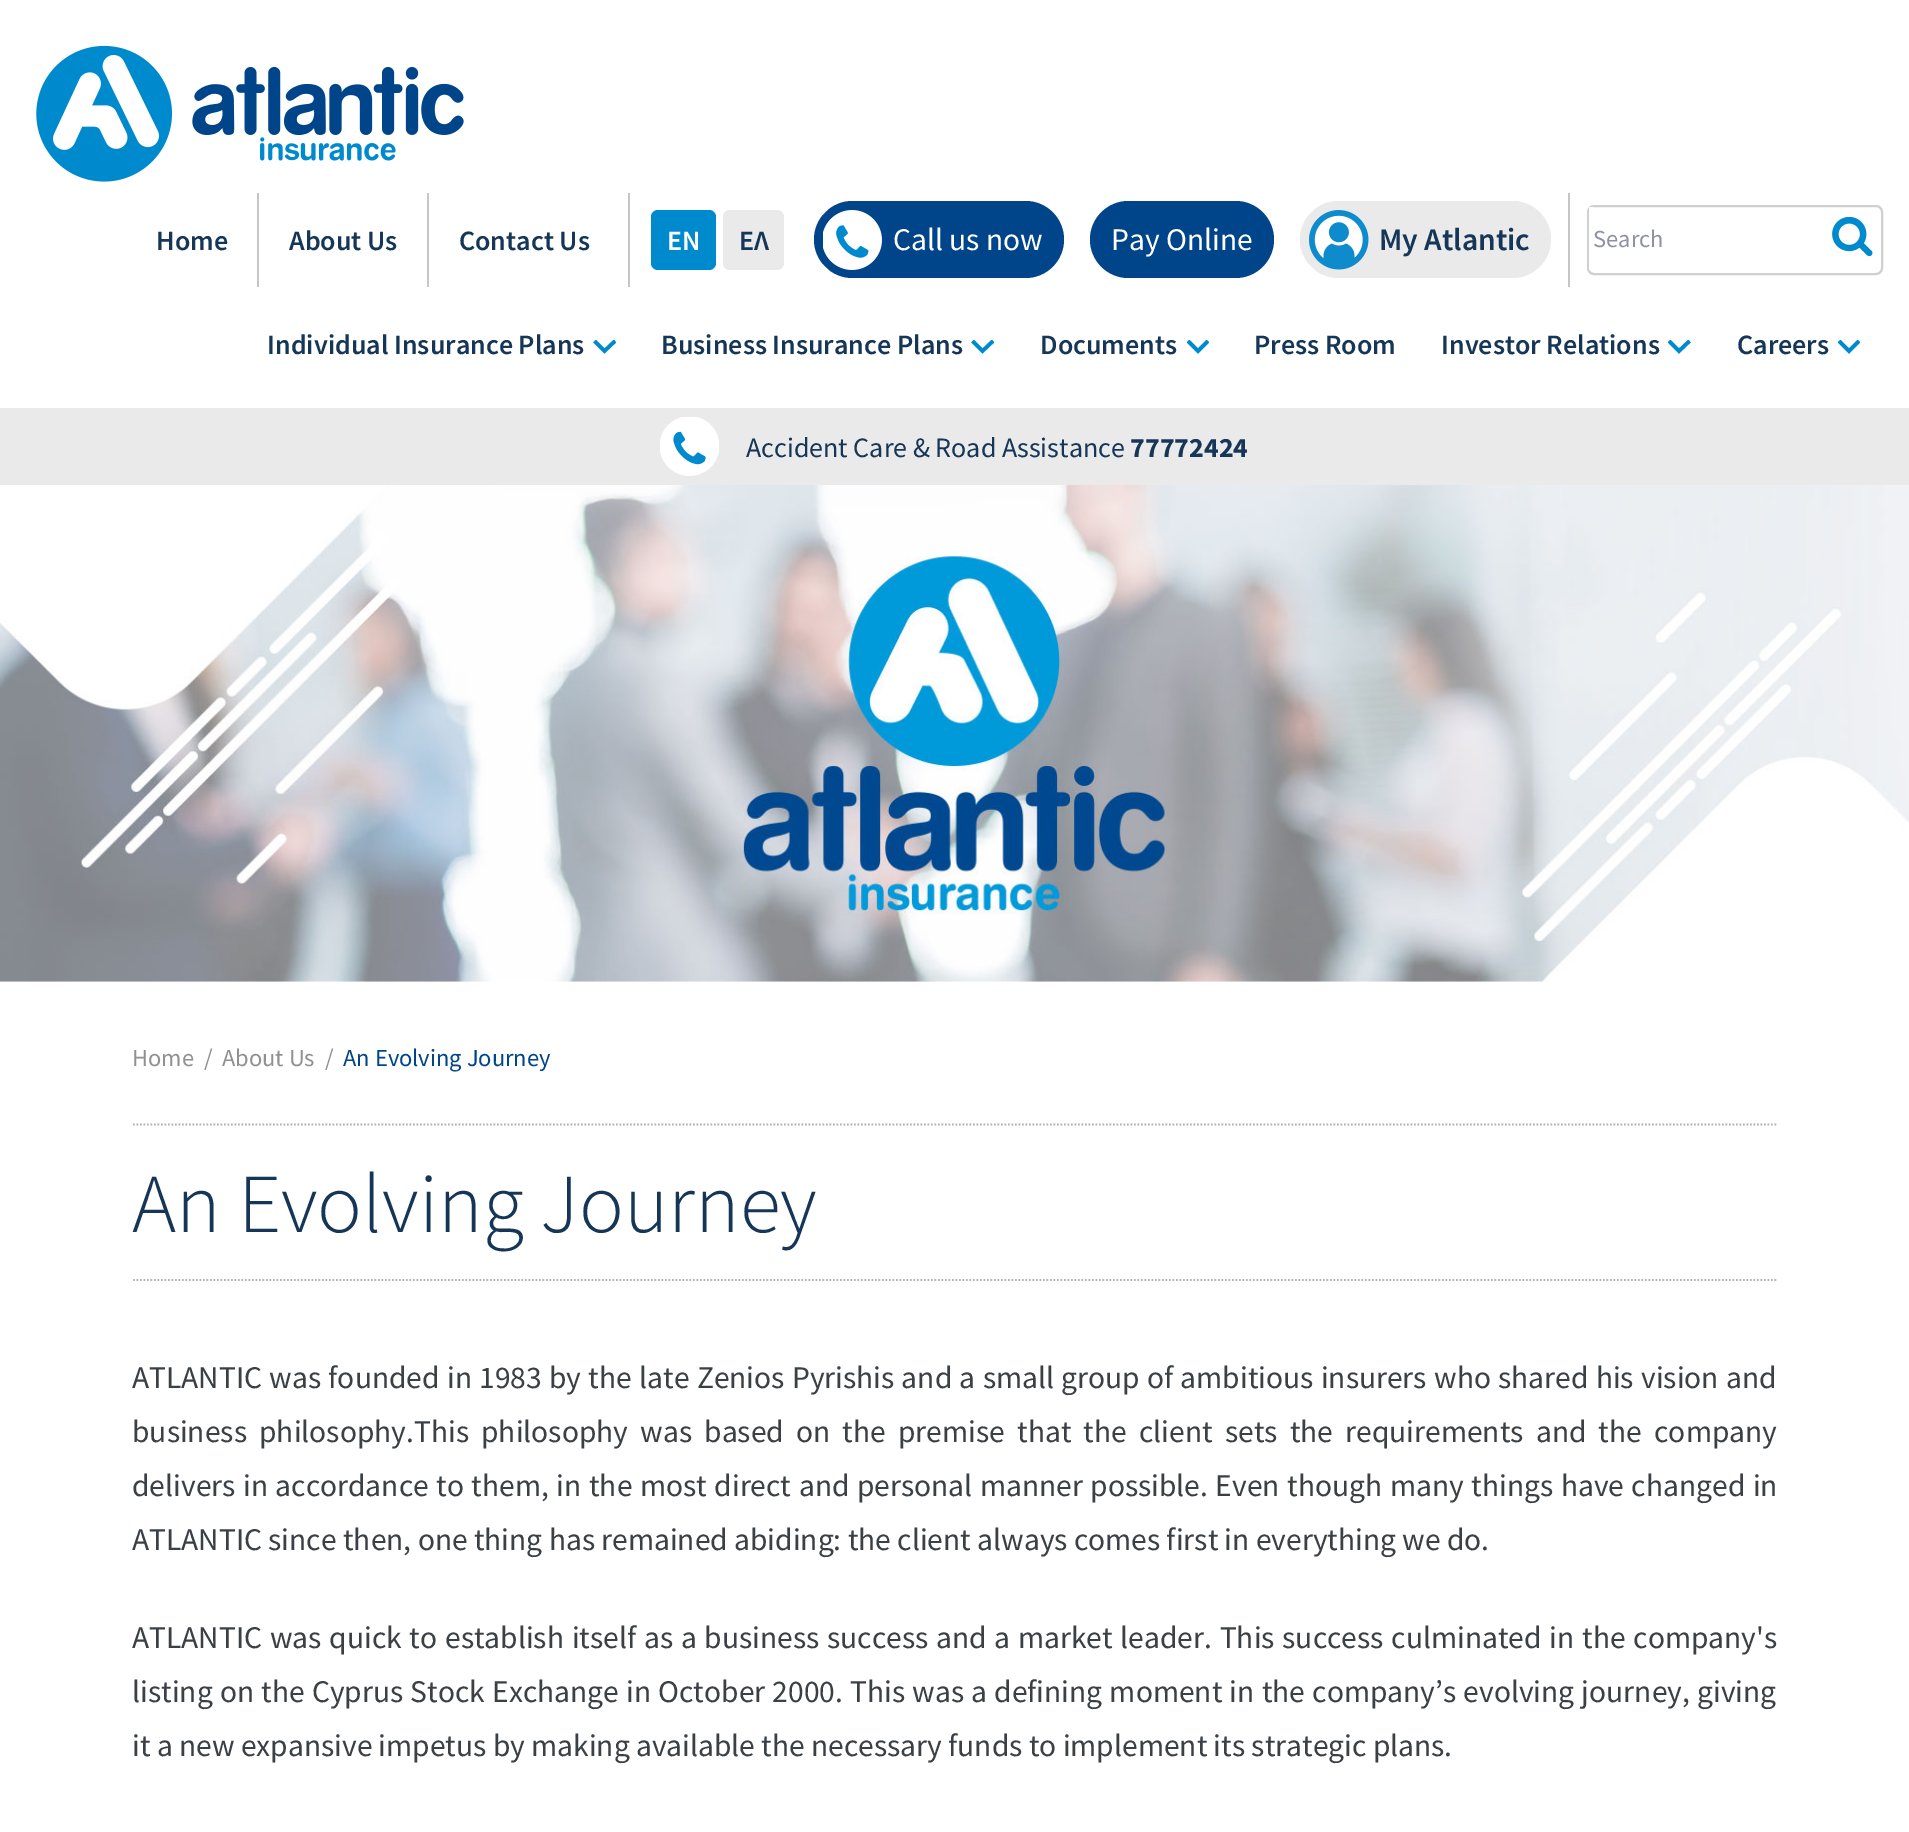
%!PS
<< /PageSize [1909 1832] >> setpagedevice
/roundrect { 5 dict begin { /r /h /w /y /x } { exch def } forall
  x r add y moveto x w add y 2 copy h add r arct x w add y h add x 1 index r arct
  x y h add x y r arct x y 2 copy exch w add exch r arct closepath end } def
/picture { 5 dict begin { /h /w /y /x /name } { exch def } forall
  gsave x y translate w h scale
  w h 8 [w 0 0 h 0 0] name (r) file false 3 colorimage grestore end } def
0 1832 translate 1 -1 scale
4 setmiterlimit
1 setgray
0 0 1909 1832 rectfill
(img1.rgb) 36 45 428 137 picture
0.776 setgray
257 193 2 94 rectfill
/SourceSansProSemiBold-SemiBold [28 0 0 -28 0 0] selectfont
0.082 0.212 0.341 setrgbcolor
156 250 moveto (Home) show
0.776 setgray
427 193 2 94 rectfill
0.082 0.212 0.341 setrgbcolor
289 250 moveto (About Us) show
459 250 moveto (Contact Us) show
0.776 setgray
628 193 2 94 rectfill
0 0.541 0.808 setrgbcolor
651 210 65 60 7 roundrect fill
1 setgray
667 250 moveto (EN) show
0.918 setgray
723 210 61 60 7 roundrect fill
0.082 0.212 0.341 setrgbcolor
739 250 moveto (ΕΛ) show
0 0.267 0.537 setrgbcolor
814 201 250 77 38.5 roundrect fill
(img2.rgb) 823 210 59 60 picture
/SourceSansPro-Regular [31.5 0 0 -31.5 0 0] selectfont
1 setgray
893 250 moveto (Call us now) show
0 0.267 0.537 setrgbcolor
1090 201 184 77 38.5 roundrect fill
1 setgray
1111 250 moveto (Pay Online) show
0.918 setgray
1300 201 251 77 38.5 roundrect fill
(img3.rgb) 1309 210 60 60 picture
/SourceSansProSemiBold-SemiBold [31.5 0 0 -31.5 0 0] selectfont
0.082 0.212 0.341 setrgbcolor
1379 250 moveto (My Atlantic) show
0.776 setgray
1568 193 2 94 rectfill
0.816 setgray
2 setlinewidth
1588 206 294 68 6 roundrect stroke
1 setgray
1589 207 4 63 rectfill
/SourceSansPro-Regular [24.5 0 0 -24.5 0 0] selectfont
0.561 0.573 0.651 setrgbcolor
1593 247 moveto (Search) show
(img4.rgb) 1832 217 41 40 picture
/SourceSansProSemiBold-SemiBold [28 0 0 -28 0 0] selectfont
0.082 0.212 0.341 setrgbcolor
267 354 moveto (Individual Insurance Plans) show
gsave
593 340 23 14 rectclip
0 0.541 0.808 setrgbcolor
3.7 setlinewidth
newpath 594.5 341 moveto 604.5 351 lineto 615 341 lineto stroke
grestore
661 354 moveto (Business Insurance Plans) show
gsave
971 340 23 14 rectclip
0 0.541 0.808 setrgbcolor
3.7 setlinewidth
newpath 972.5 341 moveto 982.5 351 lineto 993 341 lineto stroke
grestore
1040 354 moveto (Documents) show
gsave
1187 340 22 14 rectclip
0 0.541 0.808 setrgbcolor
3.7 setlinewidth
newpath 1188 341 moveto 1198 351 lineto 1208 341 lineto stroke
grestore
1254 354 moveto (Press Room) show
1441 354 moveto (Investor Relations) show
gsave
1668 340 23 14 rectclip
0 0.541 0.808 setrgbcolor
3.7 setlinewidth
newpath 1669 341 moveto 1679 351 lineto 1689.5 341 lineto stroke
grestore
1737 354 moveto (Careers) show
gsave
1838 340 22 14 rectclip
0 0.541 0.808 setrgbcolor
3.7 setlinewidth
newpath 1839 341 moveto 1849 351 lineto 1859 341 lineto stroke
grestore
0.918 setgray
0 408 1909 77 rectfill
(img5.rgb) 660 417 59 59 picture
/SourceSansPro-Regular [28 0 0 -28 0 0] selectfont
0.082 0.212 0.341 setrgbcolor
746 457 moveto (Accident Care & Road Assistance) show
/SourceSansPro-Bold [28 0 0 -28 0 0] selectfont
1130 457 moveto (77772424) show
(img6.rgb) 0 485 1909 497 picture
/SourceSansPro-Regular [24.5 0 0 -24.5 0 0] selectfont
0.565 setgray
132 1066 moveto (Home) show
204 1066 moveto (/) show
222 1066 moveto (About Us) show
325 1066 moveto (/) show
0 0.267 0.537 setrgbcolor
343 1066 moveto (An Evolving Journey) show
0.698 setgray
1.8 setlinewidth
[1.75 1.75] 0 setdash
newpath 133 1124.5 moveto 1778 1124.5 lineto stroke
newpath 133 1280 moveto 1778 1280 lineto stroke
/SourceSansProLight-Light [84 0 0 -84 0 0] selectfont
0.082 0.212 0.341 setrgbcolor
132 1232 moveto (An Evolving Journey) show
/SourceSansPro-Regular [31.5 0 0 -31.5 0 0] selectfont
0.231 0.251 0.271 setrgbcolor
132 1388 moveto 1 0 32 (ATLANTIC was founded in 1983 by the late Zenios Pyrishis and a small group of ambitious insurers who shared his vision and) widthshow
132 1442 moveto 5.9 0 32 (business philosophy.This philosophy was based on the premise that the client sets the requirements and the company) widthshow
132 1496 moveto 1.25 0 32 (delivers in accordance to them, in the most direct and personal manner possible. Even though many things have changed in) widthshow
132 1550 moveto (ATLANTIC since then, one thing has remained abiding: the client always comes first in everything we do.) show
132 1648 moveto 1.5 0 32 (ATLANTIC was quick to establish itself as a business success and a market leader. This success culminated in the company's) widthshow
132 1702 moveto 0.9 0 32 (listing on the Cyprus Stock Exchange in October 2000. This was a defining moment in the company’s evolving journey, giving) widthshow
132 1756 moveto (it a new expansive impetus by making available the necessary funds to implement its strategic plans.) show
showpage
